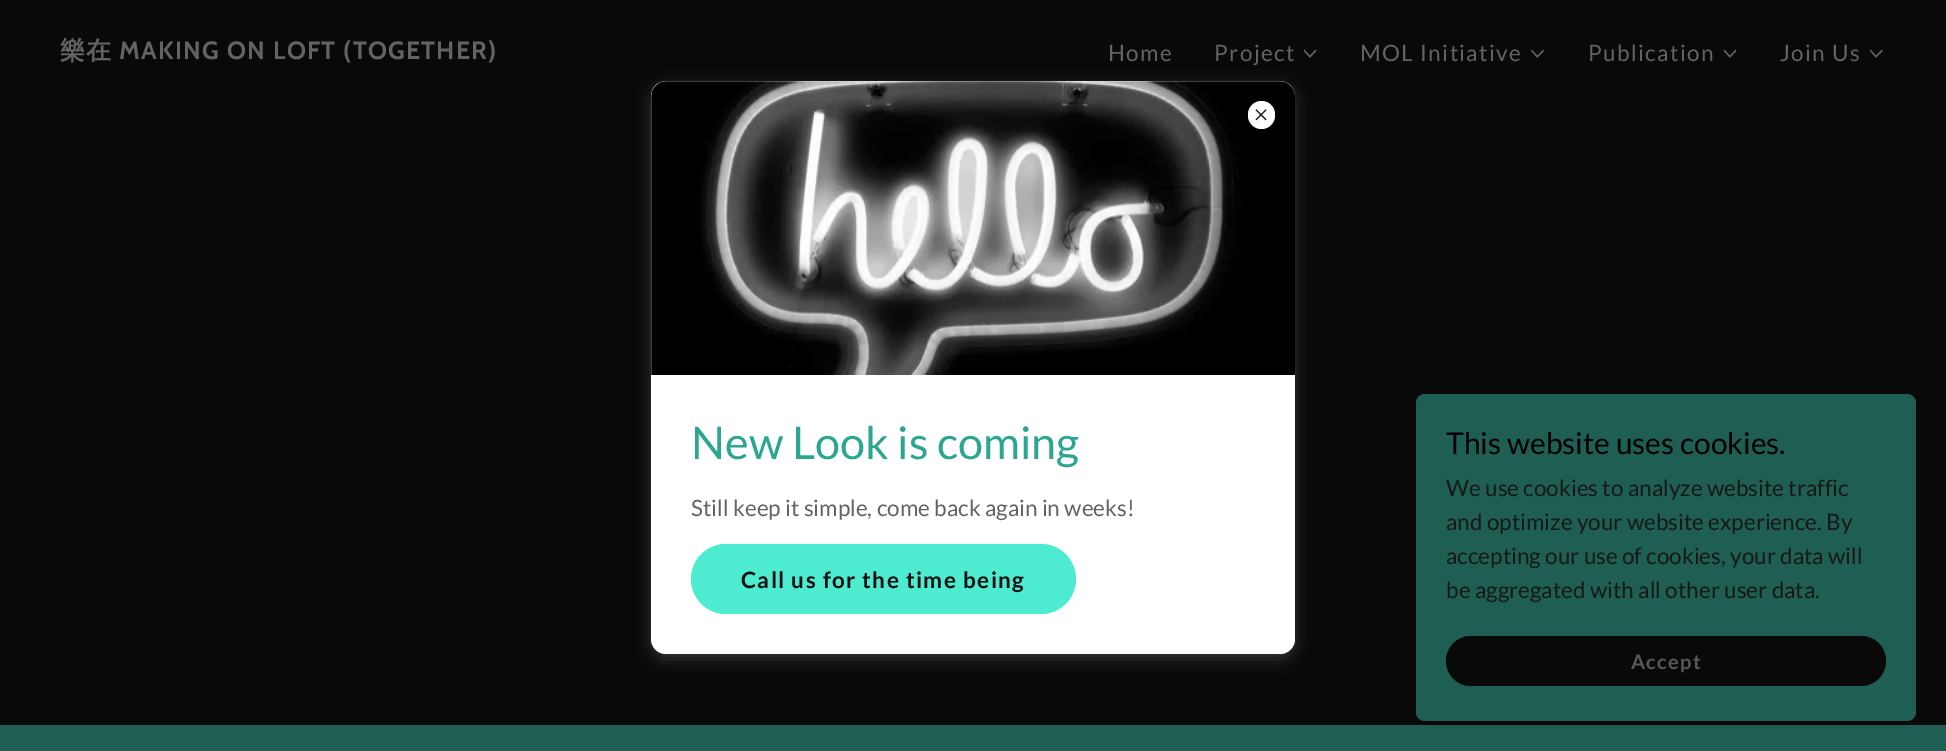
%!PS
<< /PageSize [1946 751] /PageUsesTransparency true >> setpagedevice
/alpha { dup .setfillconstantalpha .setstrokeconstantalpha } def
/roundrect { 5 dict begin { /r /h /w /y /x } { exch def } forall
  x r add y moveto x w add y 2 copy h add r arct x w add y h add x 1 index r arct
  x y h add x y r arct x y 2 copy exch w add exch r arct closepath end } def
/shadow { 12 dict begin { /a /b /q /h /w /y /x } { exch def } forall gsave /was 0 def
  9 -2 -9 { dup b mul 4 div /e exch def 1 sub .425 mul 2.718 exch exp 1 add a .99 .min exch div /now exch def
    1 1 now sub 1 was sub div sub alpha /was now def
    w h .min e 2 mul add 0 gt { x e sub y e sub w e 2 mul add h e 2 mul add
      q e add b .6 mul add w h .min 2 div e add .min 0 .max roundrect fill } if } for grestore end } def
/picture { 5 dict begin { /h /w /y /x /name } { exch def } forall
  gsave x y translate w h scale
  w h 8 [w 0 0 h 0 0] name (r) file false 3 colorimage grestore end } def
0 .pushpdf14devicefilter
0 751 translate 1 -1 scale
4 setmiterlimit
0.122 0.369 0.325 setrgbcolor
0 0 1946 751 rectfill
0.035 setgray
0 0 1946 725 rectfill
/WenQuanYiZenHei-Bold [25 0 0 -25 0 0] selectfont
0.388 setgray
60 59 moveto 1.25 0 (樂在) ashow
/Cabin-Bold [25 0 0 -25 0 0] selectfont
119 59 moveto 1.25 0 (MAKING ON LOFT \(TOGETHER\)) ashow
/Lato-Regular [22.5 0 0 -22.5 0 0] selectfont
1108 61 moveto 1.4 0 (Home) ashow
1214 61 moveto 1.4 0 (Project) ashow
(img1.rgb) 1303 49 14 9 picture
1360 61 moveto 1.4 0 (MOL Initiative) ashow
(img2.rgb) 1530 49 15 9 picture
1588 61 moveto 1.4 0 (Publication) ashow
(img1.rgb) 1723 49 14 9 picture
1780 61 moveto 1.4 0 (Join Us) ashow
(img3.rgb) 1869 49 14 9 picture
0.459 setgray
651 86 644 573 15 7.5 0.4 shadow
1 setgray
651 81 644 573 15 roundrect fill
(img5.rgb) 651 81 644 294 picture
1248 101 27 28 13.5 roundrect fill
(img4.rgb) 1255 109 12 12 picture
/Lato-Regular [45 0 0 -45 0 0] selectfont
0.169 0.651 0.569 setrgbcolor
691 459 moveto (New Look is coming) show
/Lato-Regular [22.5 0 0 -22.5 0 0] selectfont
0.388 setgray
691 516 moveto (Still keep it simple, come back again in weeks!) show
0.302 0.922 0.816 setrgbcolor
691 544 385 70 35 roundrect fill
/Lato-Bold [22.5 0 0 -22.5 0 0] selectfont
0.063 setgray
741 588 moveto 1.4 0 (Call us for the time being) ashow
0.122 0.369 0.325 setrgbcolor
1416 394 500 327 9 roundrect fill
/Lato-Regular [30 0 0 -30 0 0] selectfont
0 setgray
1446 454 moveto (This website uses cookies.) show
/Lato-Regular [22.5 0 0 -22.5 0 0] selectfont
0.078 0.094 0.09 setrgbcolor
1446 496 moveto (We use cookies to analyze website traffic) show
1446 530 moveto (and optimize your website experience. By) show
1446 564 moveto (accepting our use of cookies, your data will) show
1446 598 moveto (be aggregated with all other user data.) show
0.035 setgray
1446 636 440 50 25 roundrect fill
/Lato-Bold [20 0 0 -20 0 0] selectfont
0.345 setgray
1631 669 moveto 1.25 0 (Accept) ashow
.poppdf14devicefilter showpage
